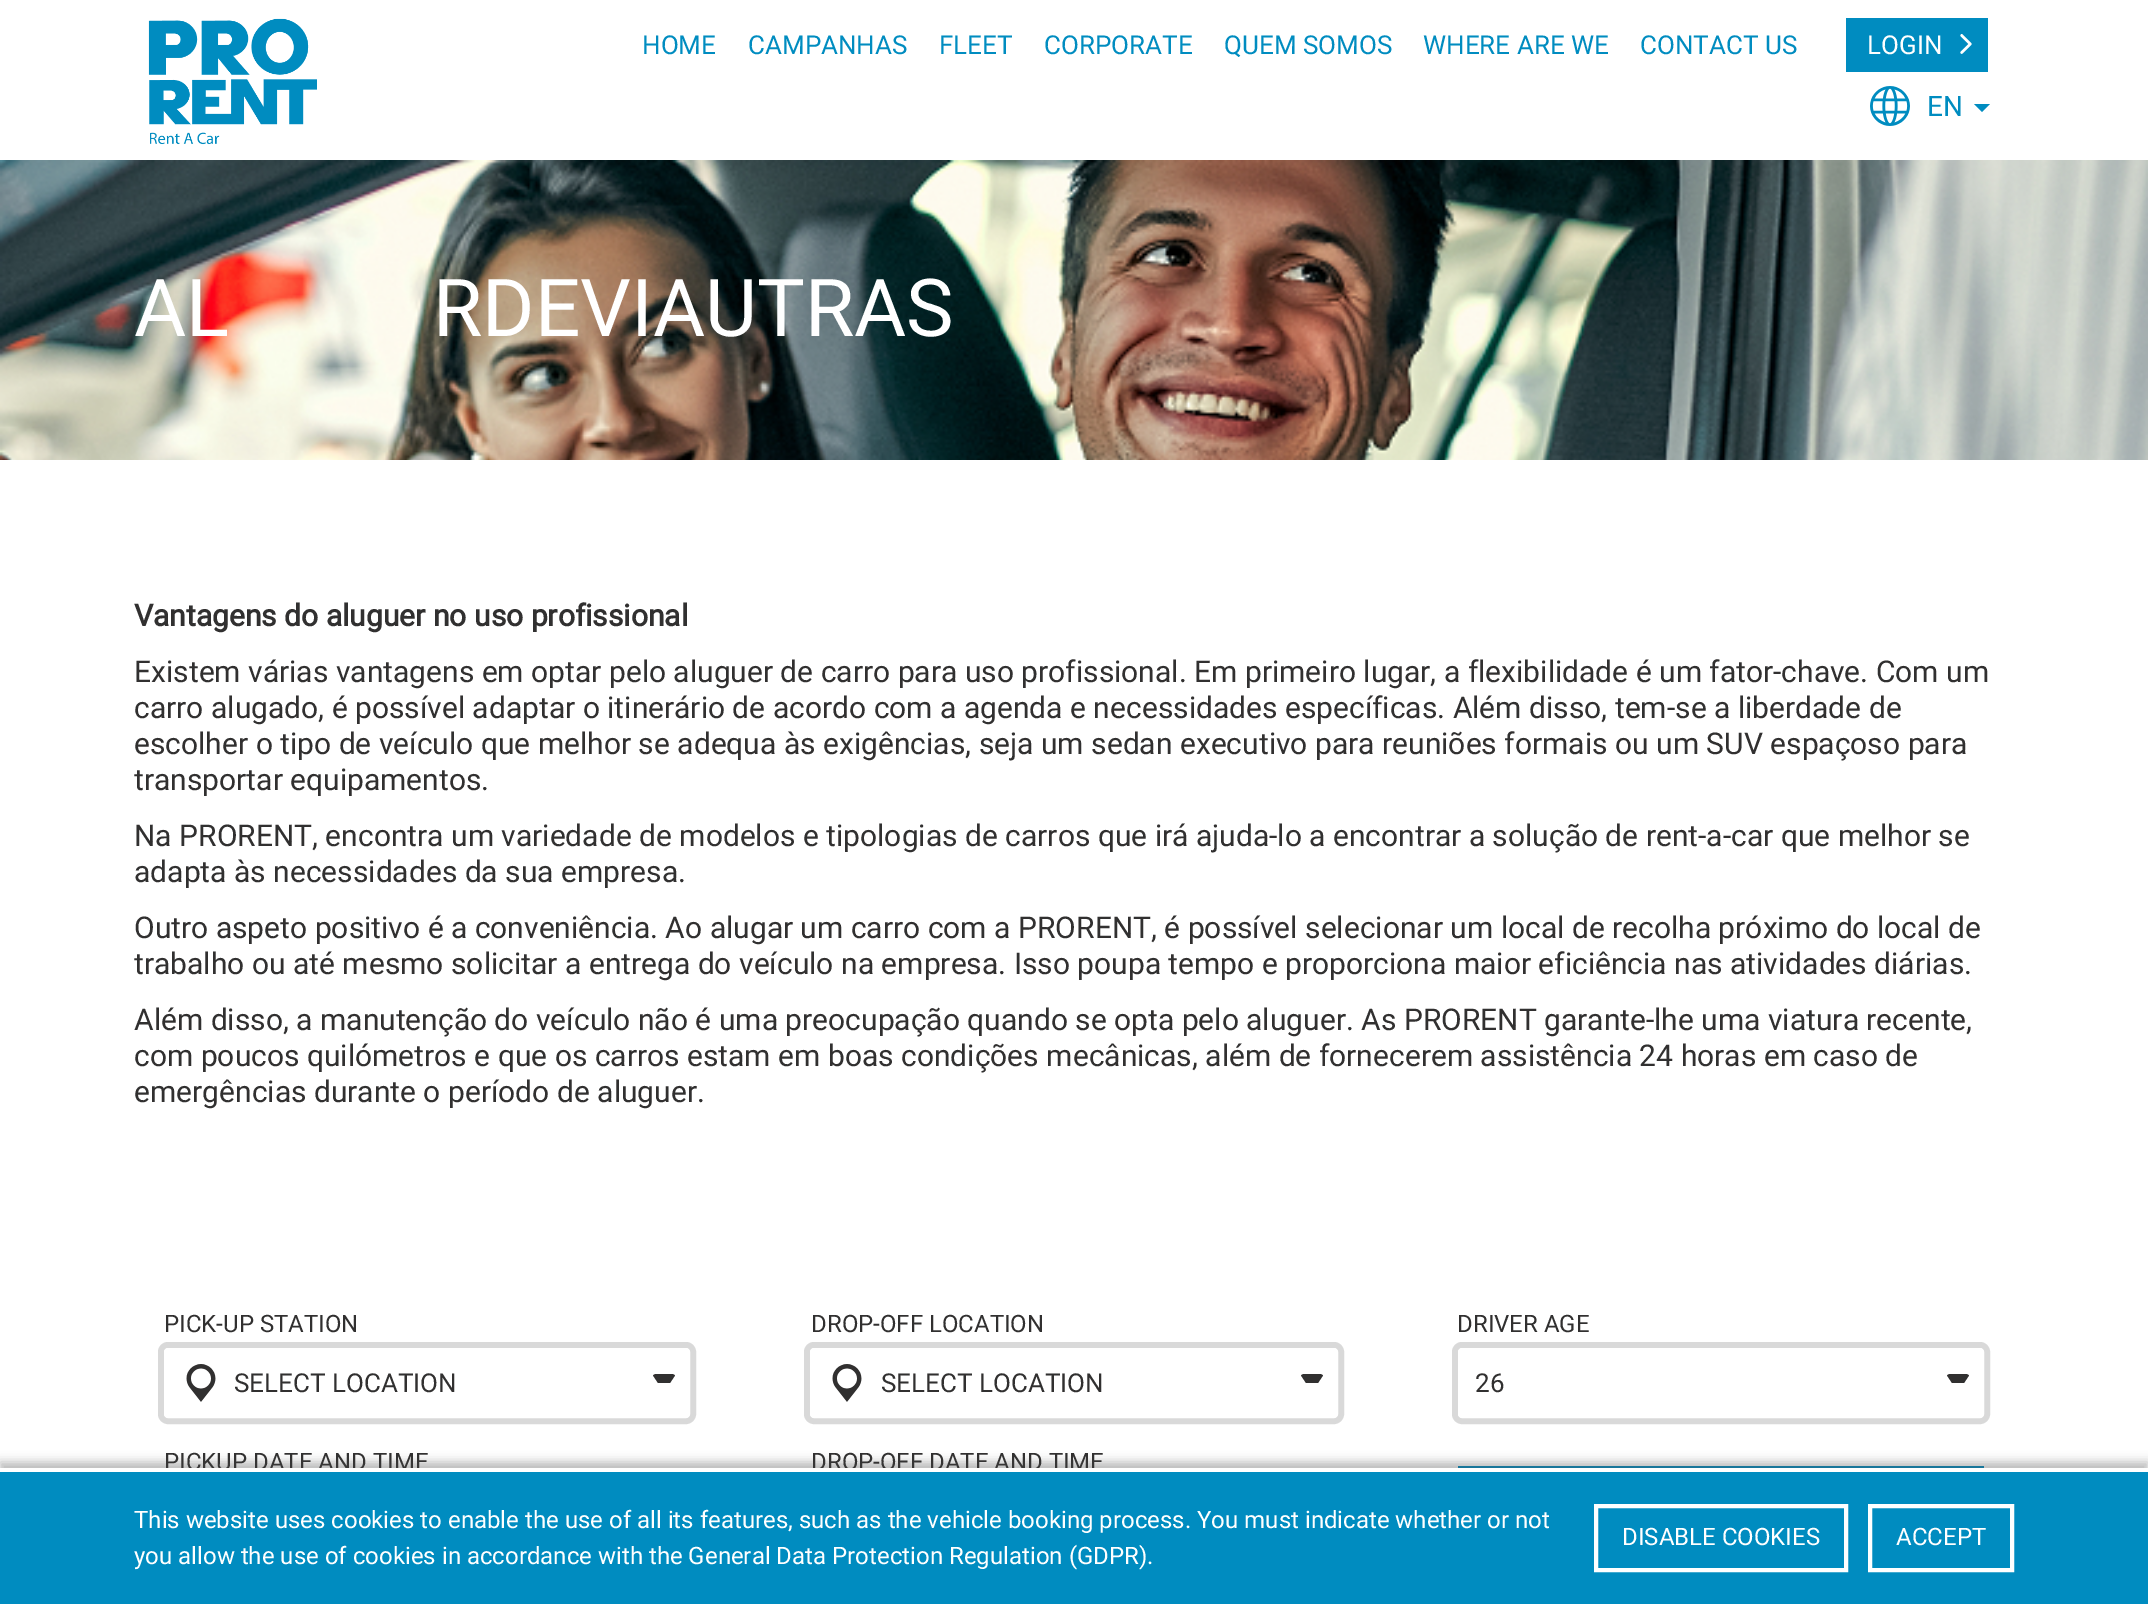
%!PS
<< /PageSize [2148 1604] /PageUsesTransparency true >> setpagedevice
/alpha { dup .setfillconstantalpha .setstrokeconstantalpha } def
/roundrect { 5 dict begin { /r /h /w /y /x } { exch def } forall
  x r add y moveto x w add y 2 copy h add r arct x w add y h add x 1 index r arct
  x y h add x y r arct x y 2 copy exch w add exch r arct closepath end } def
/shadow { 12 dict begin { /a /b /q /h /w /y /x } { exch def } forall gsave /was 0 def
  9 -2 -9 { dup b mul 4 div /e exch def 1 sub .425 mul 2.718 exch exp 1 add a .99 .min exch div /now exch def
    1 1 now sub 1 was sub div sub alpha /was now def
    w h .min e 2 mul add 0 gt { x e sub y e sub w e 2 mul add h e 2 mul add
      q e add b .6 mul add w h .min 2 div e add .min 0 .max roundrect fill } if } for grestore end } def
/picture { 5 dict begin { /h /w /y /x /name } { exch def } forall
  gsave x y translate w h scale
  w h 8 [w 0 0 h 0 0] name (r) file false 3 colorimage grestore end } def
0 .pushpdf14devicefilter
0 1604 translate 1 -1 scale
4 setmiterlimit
1 setgray
0 0 2148 1604 rectfill
(img1.rgb) 148 18 169 127 picture
/Roboto-Regular [26 0 0 -26 0 0] selectfont
0 0.549 0.753 setrgbcolor
642 54 moveto (HOME) show
748 54 moveto (CAMPANHAS) show
939 54 moveto (FLEET) show
1044 54 moveto (CORPORATE) show
1224 54 moveto (QUEM SOMOS) show
1423 54 moveto (WHERE ARE WE) show
1640 54 moveto (CONTACT US) show
1846 18 142 54 rectfill
1 setgray
1867 54 moveto (LOGIN) show
(img2.rgb) 1960 34 12 20 picture
(img3.rgb) 1870 86 40 40 picture
/Roboto-Regular [28 0 0 -28 0 0] selectfont
0 0.549 0.753 setrgbcolor
1927 116 moveto (EN) show
newpath 1974 104 moveto 1990 104 lineto 1982 112 lineto closepath fill
(img4.rgb) 0 160 2148 300 picture
/Roboto-Regular [80 0 0 -80 0 0] selectfont
1 setgray
134 336 moveto (AL) show
433 336 moveto (RDEVIAUTRAS) show
/Roboto-Bold [30 0 0 -30 0 0] selectfont
0.192 0.188 0.188 setrgbcolor
134 626 moveto (Vantagens do aluguer no uso profissional) show
/Roboto-Regular [30 0 0 -30 0 0] selectfont
134 682 moveto (Existem várias vantagens em optar pelo aluguer de carro para uso profissional. Em primeiro lugar, a flexibilidade é um fator-chave. Com um) show
134 718 moveto (carro alugado, é possível adaptar o itinerário de acordo com a agenda e necessidades específicas. Além disso, tem-se a liberdade de) show
134 754 moveto (escolher o tipo de veículo que melhor se adequa às exigências, seja um sedan executivo para reuniões formais ou um SUV espaçoso para) show
134 790 moveto (transportar equipamentos.) show
134 846 moveto (Na PRORENT, encontra um variedade de modelos e tipologias de carros que irá ajuda-lo a encontrar a solução de rent-a-car que melhor se) show
134 882 moveto (adapta às necessidades da sua empresa.) show
134 938 moveto (Outro aspeto positivo é a conveniência. Ao alugar um carro com a PRORENT, é possível selecionar um local de recolha próximo do local de) show
134 974 moveto (trabalho ou até mesmo solicitar a entrega do veículo na empresa. Isso poupa tempo e proporciona maior eficiência nas atividades diárias.) show
134 1030 moveto (Além disso, a manutenção do veículo não é uma preocupação quando se opta pelo aluguer. As PRORENT garante-lhe uma viatura recente,) show
134 1066 moveto (com poucos quilómetros e que os carros estam em boas condições mecânicas, além de fornecerem assistência 24 horas em caso de) show
134 1102 moveto (emergências durante o período de aluguer.) show
/Roboto-Regular [24 0 0 -24 0 0] selectfont
164 1332 moveto (PICK-UP STATION) show
0.851 setgray
6 setlinewidth
161 1345 532 76 7 roundrect stroke
1 setgray
165 1349 524 68 3 roundrect gsave fill grestore
2 setlinewidth
stroke
(img5.rgb) 186 1364 30 38 picture
/Roboto-Regular [26 0 0 -26 0 0] selectfont
0.192 0.188 0.188 setrgbcolor
234 1392 moveto (SELECT LOCATION) show
newpath 656 1374 moveto 655 1374 654 1374.5 653 1375.5 curveto 658 1383 lineto 670 1383 lineto 675 1375.5 lineto 674 1374.5 673 1374 672 1374 curveto closepath fill
/Roboto-Regular [24 0 0 -24 0 0] selectfont
164 1470 moveto (PICKUP DATE AND TIME) show
811 1332 moveto (DROP-OFF LOCATION) show
0.851 setgray
6 setlinewidth
807 1345 534 76 7 roundrect stroke
1 setgray
811 1349 526 68 3 roundrect gsave fill grestore
2 setlinewidth
stroke
(img5.rgb) 832 1364 30 38 picture
/Roboto-Regular [26 0 0 -26 0 0] selectfont
0.192 0.188 0.188 setrgbcolor
881 1392 moveto (SELECT LOCATION) show
newpath 1304 1374 moveto 1303 1374 1302 1374.5 1301 1375.5 curveto 1306 1383 lineto 1318 1383 lineto 1323 1375.5 lineto 1322 1374.5 1321 1374 1320 1374 curveto closepath fill
/Roboto-Regular [24 0 0 -24 0 0] selectfont
811 1470 moveto (DROP-OFF DATE AND TIME) show
1457 1332 moveto (DRIVER AGE) show
0.851 setgray
6 setlinewidth
1455 1345 532 76 7 roundrect stroke
1 setgray
1459 1349 524 68 3 roundrect gsave fill grestore
2 setlinewidth
stroke
/Roboto-Regular [26 0 0 -26 0 0] selectfont
0.192 0.188 0.188 setrgbcolor
1475 1392 moveto (26) show
newpath 1950 1374 moveto 1949 1374 1948 1374.5 1947 1375.5 curveto 1952 1383 lineto 1964 1383 lineto 1969 1375.5 lineto 1968 1374.5 1967 1374 1966 1374 curveto closepath fill
0 0.549 0.753 setrgbcolor
1458 1466 526 2 rectfill
0.29 setgray
0 1462 2148 136 0 5 0.38 shadow
0 0.549 0.753 setrgbcolor
0 1472 2148 132 rectfill
1 setgray
0 1468 2148 4 rectfill
/Roboto-Regular [24 0 0 -24 0 0] selectfont
134 1528 moveto (This website uses cookies to enable the use of all its features, such as the vehicle booking process. You must indicate whether or not) show
134 1564 moveto (you allow the use of cookies in accordance with the General Data Protection Regulation \(GDPR\).) show
4 setlinewidth
1596 1506 250 64 rectstroke
1622 1545 moveto (DISABLE COOKIES) show
1870 1506 142 64 rectstroke
1896 1545 moveto (ACCEPT) show
.poppdf14devicefilter showpage
